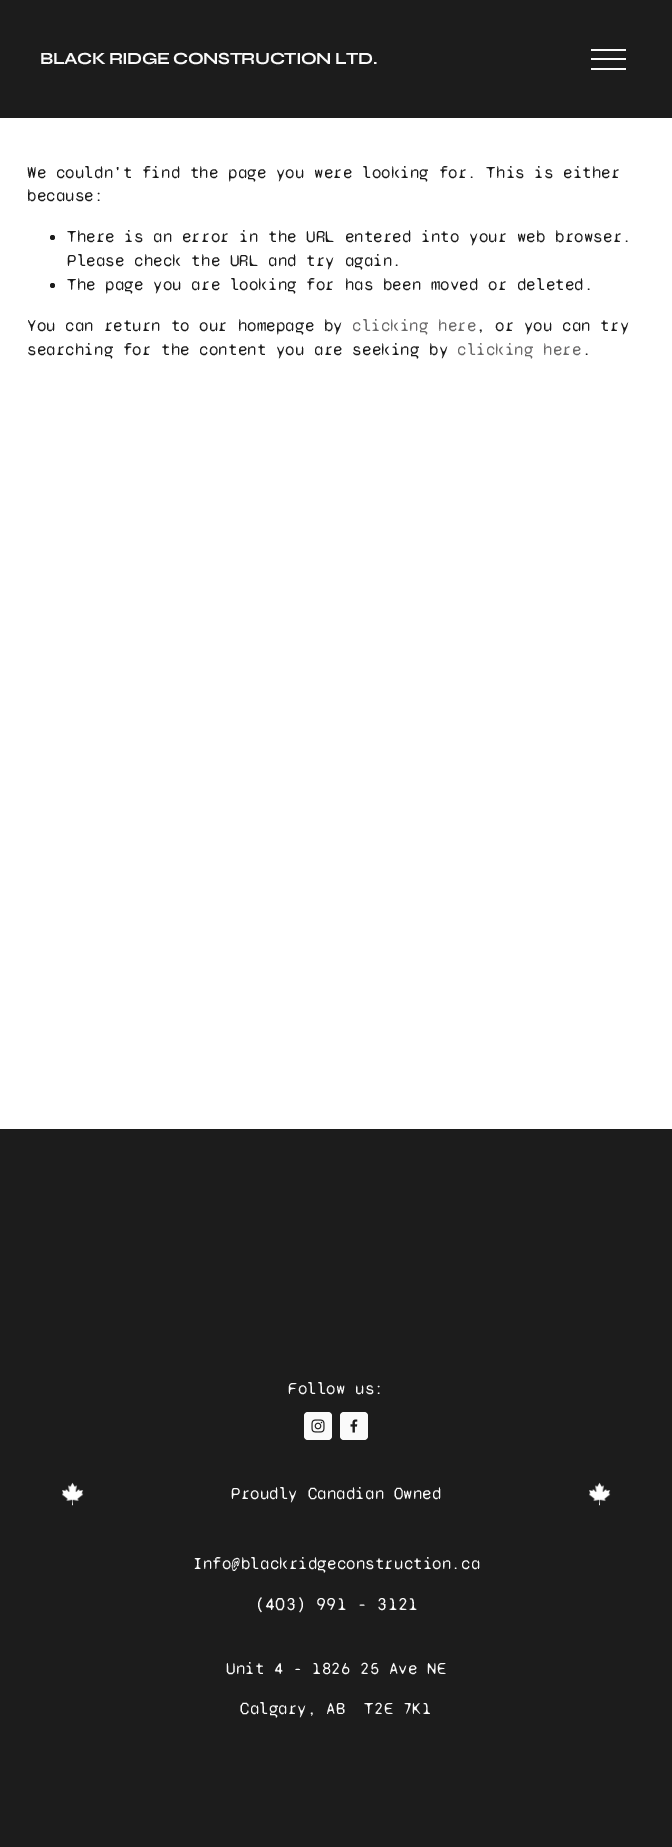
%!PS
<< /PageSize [672 1847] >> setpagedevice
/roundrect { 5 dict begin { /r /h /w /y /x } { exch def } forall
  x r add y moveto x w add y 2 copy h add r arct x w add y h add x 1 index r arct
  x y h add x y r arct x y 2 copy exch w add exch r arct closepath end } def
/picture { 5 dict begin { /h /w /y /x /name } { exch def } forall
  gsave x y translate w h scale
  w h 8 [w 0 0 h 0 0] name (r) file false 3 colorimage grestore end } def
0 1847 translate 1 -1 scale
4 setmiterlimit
1 setgray
0 0 672 1847 rectfill
0.11 setgray
0 0 672 118 rectfill
/Syne-Bold [17.1 0 0 -17.1 0 0] selectfont
0.98 setgray
40 64 moveto -0.5 0 (BLACK RIDGE CONSTRUCTION LTD.) ashow
591 49 35 2 rectfill
591 58 35 2 rectfill
591 68 35 2 rectfill
/SyneMono-Regular [17.1 0 0 -17.1 0 0] selectfont
0.11 setgray
27 178 moveto 0.17 0 (We couldn't find the page you were looking for. This is either) ashow
27 201 moveto 0.17 0 (because:) ashow
newpath 52.5 237.5 2.5 0 360 arc closepath fill
67 242 moveto 0.17 0 (There is an error in the URL entered into your web browser.) ashow
67 266 moveto 0.17 0 (Please check the URL and try again.) ashow
newpath 52.5 285.5 2.5 0 360 arc closepath fill
67 290 moveto 0.17 0 (The page you are looking for has been moved or deleted.) ashow
27 331 moveto 0.17 0 (You can return to our homepage by) ashow
0.416 0.412 0.412 setrgbcolor
352 331 moveto 0.17 0 (clicking here) ashow
0.11 setgray
476 331 moveto 0.17 0 (, or you can try) ashow
27 355 moveto 0.17 0 (searching for the content you are seeking by) ashow
0.416 0.412 0.412 setrgbcolor
457 355 moveto 0.17 0 (clicking here) ashow
0.11 setgray
582 355 moveto 0.17 0 (.) ashow
0 1129 672 718 rectfill
0.98 setgray
288 1394 moveto 0.17 0 (Follow us:) ashow
304 1412 28 28 4 roundrect fill
(img1.rgb) 311 1419 14 14 picture
340 1412 28 28 4 roundrect fill
(img2.rgb) 350 1419 8 14 picture
(img3.rgb) 62 1482 22 24 picture
231 1499 moveto 0.17 0 (Proudly Canadian Owned) ashow
(img3.rgb) 589 1482 22 24 picture
193 1569 moveto 0.17 0 (Info@blackridgeconstruction.ca) ashow
/SyneMono-Regular [18.25 0 0 -18.25 0 0] selectfont
255 1610 moveto 0.17 0 (\(403\) 991 - 3121) ashow
/SyneMono-Regular [17.1 0 0 -17.1 0 0] selectfont
226 1674 moveto 0.17 0 (Unit 4 - 1826 25 Ave NE) ashow
240 1714 moveto 0.17 0 (Calgary, AB  T2E 7K1) ashow
showpage
